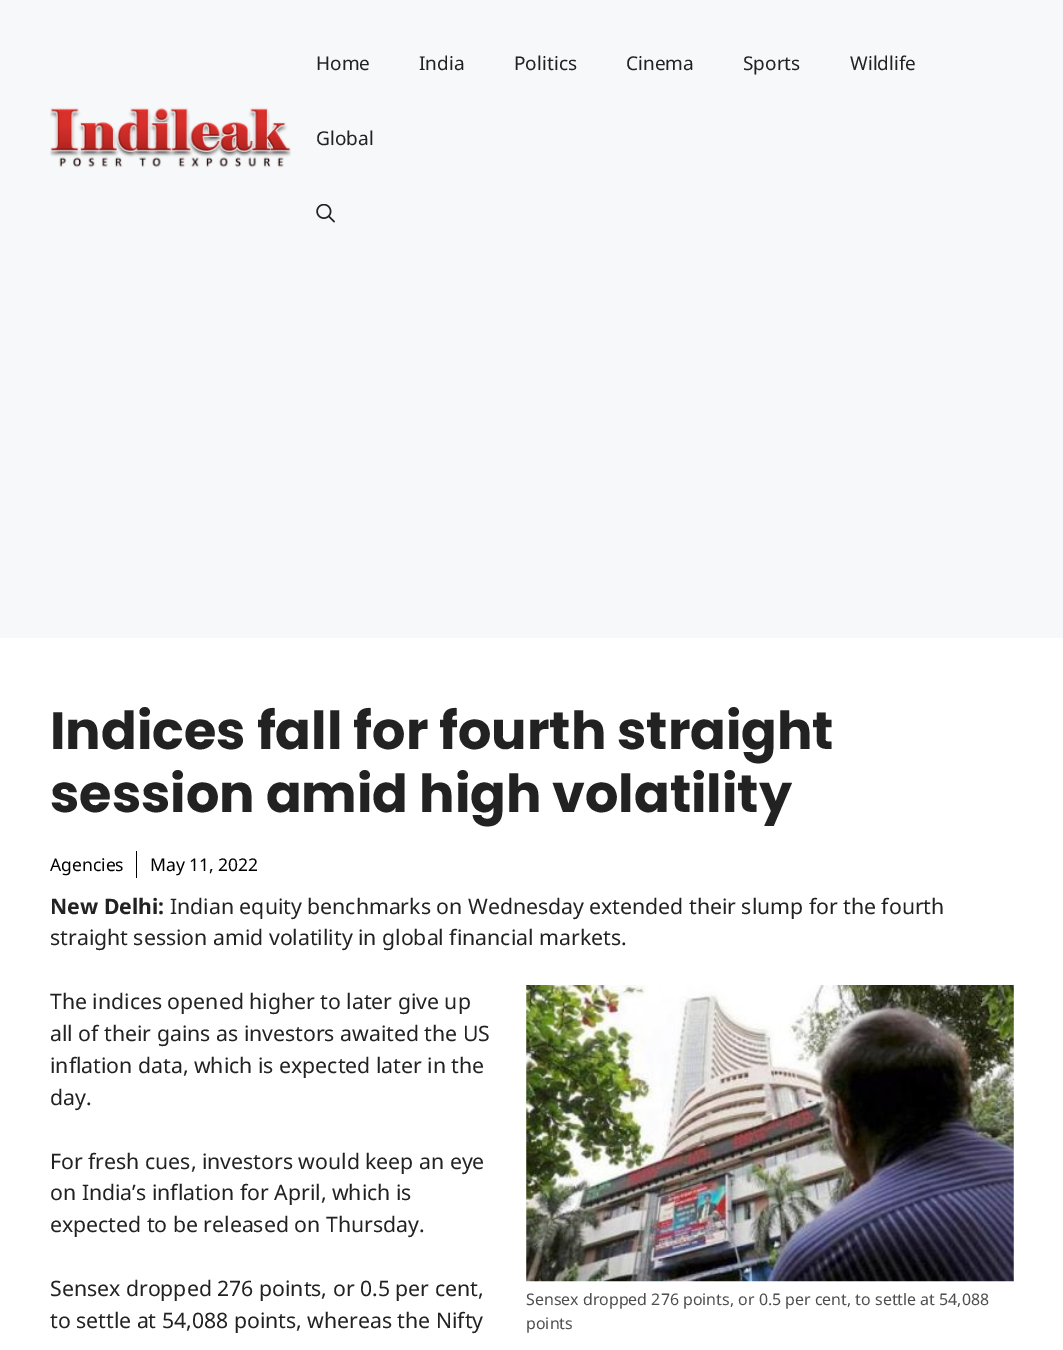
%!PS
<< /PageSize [1063 1350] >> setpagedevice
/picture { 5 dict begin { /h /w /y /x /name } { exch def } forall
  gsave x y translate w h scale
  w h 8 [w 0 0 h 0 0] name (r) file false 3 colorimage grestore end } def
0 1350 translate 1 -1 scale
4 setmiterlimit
1 setgray
0 0 1063 1350 rectfill
0.969 0.973 0.976 setrgbcolor
0 0 1063 638 rectfill
(img1.rgb) 50 107 241 61 picture
/NotoSans-Regular [19 0 0 -19 0 0] selectfont
0.133 setgray
316 70 moveto (Home) show
419 70 moveto (India) show
514 70 moveto (Politics) show
626 70 moveto (Cinema) show
743 70 moveto (Sports) show
850 70 moveto (Wildlife) show
316 145 moveto (Global) show
(img2.rgb) 316 204 19 19 picture
/Poppins-Bold [52.5 0 0 -52.5 0 0] selectfont
50 749 moveto (Indices fall for fourth straight) show
50 812 moveto (session amid high volatility) show
0 setgray
136 851 1 27 rectfill
/NotoSans-Regular [17.5 0 0 -17.5 0 0] selectfont
50 871 moveto (Agencies) show
150 871 moveto (May 11, 2022) show
/NotoSans-Bold [21.25 0 0 -21.25 0 0] selectfont
0.133 setgray
50 914 moveto (New Delhi:) show
/NotoSans-Regular [21.25 0 0 -21.25 0 0] selectfont
170 914 moveto (Indian equity benchmarks on Wednesday extended their slump for the fourth) show
50 945 moveto (straight session amid volatility in global financial markets.) show
50 1009 moveto (The indices opened higher to later give up) show
50 1041 moveto (all of their gains as investors awaited the US) show
50 1073 moveto (inflation data, which is expected later in the) show
50 1105 moveto (day.) show
50 1169 moveto (For fresh cues, investors would keep an eye) show
50 1200 moveto (on India’s inflation for April, which is) show
50 1232 moveto (expected to be released on Thursday.) show
50 1296 moveto (Sensex dropped 276 points, or 0.5 per cent,) show
50 1328 moveto (to settle at 54,088 points, whereas the Nifty) show
(img3.rgb) 526 985 488 297 picture
/NotoSans-Regular [15.95 0 0 -15.95 0 0] selectfont
0.306 setgray
526 1305 moveto (Sensex dropped 276 points, or 0.5 per cent, to settle at 54,088) show
526 1329 moveto (points) show
showpage
